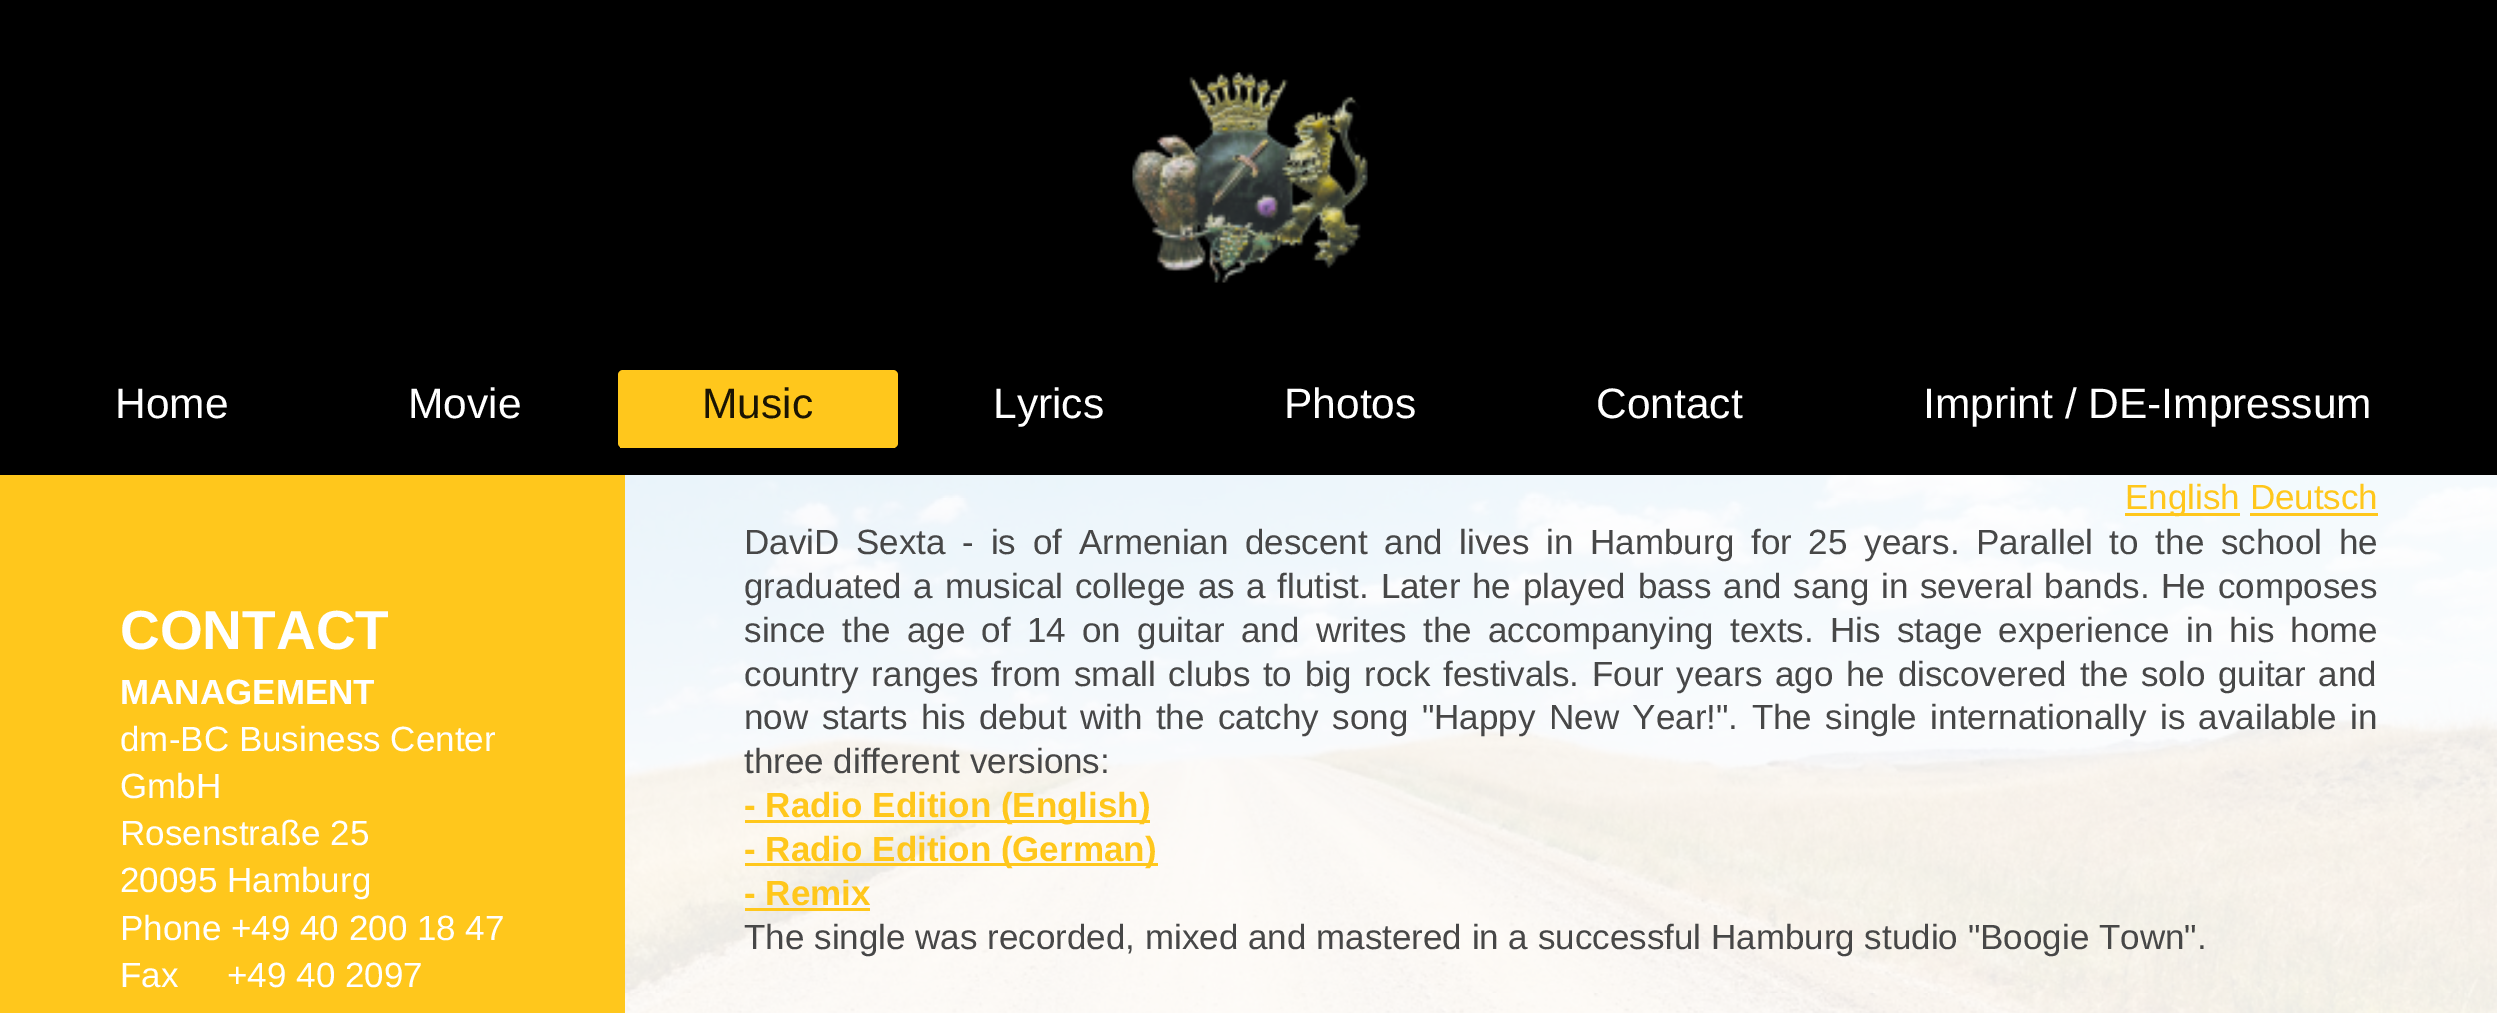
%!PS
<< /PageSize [2497 1013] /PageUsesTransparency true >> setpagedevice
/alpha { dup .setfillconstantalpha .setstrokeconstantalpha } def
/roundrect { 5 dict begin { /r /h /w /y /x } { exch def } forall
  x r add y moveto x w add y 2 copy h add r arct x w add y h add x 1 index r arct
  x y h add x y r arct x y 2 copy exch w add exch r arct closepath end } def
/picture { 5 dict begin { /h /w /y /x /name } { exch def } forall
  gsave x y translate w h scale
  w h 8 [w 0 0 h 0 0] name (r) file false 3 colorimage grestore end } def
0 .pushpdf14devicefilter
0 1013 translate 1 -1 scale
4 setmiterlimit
1 setgray
0 0 2497 1013 rectfill
(img1.rgb) 625 475 1872 538 picture
0 setgray
0 0 2497 475 rectfill
(img2.rgb) 1132 72 236 211 picture
/LiberationSans-Regular [42.5 0 0 -42.5 0 0] selectfont
1 setgray
115 418 moveto (Home) show
408 418 moveto (Movie) show
1 0.78 0.11 setrgbcolor
618 370 280 78 5 roundrect fill
620 447 275 1 rectfill
0.102 0.078 0.012 setrgbcolor
702 418 moveto (Music) show
1 setgray
993 418 moveto (Lyrics) show
1284 418 moveto (Photos) show
1596 418 moveto (Contact) show
1923 418 moveto (Imprint / DE-Impressum) show
1 0.78 0.11 setrgbcolor
0 475 625 538 rectfill
/LiberationSans-Bold [55 0 0 -55 0 0] selectfont
1 setgray
120 649 moveto (CONTACT) show
/LiberationSans-Bold [35 0 0 -35 0 0] selectfont
120 704 moveto (MANAGEMENT) show
/LiberationSans-Regular [35 0 0 -35 0 0] selectfont
120 751 moveto (dm-BC Business Center) show
120 798 moveto (GmbH) show
120 845 moveto (Rosenstraße 25) show
120 892 moveto (20095 Hamburg) show
120 940 moveto (Phone +49 40 200 18 47) show
120 987 moveto (Fax     +49 40 2097) show
0.9 alpha
625 475 1872 538 rectfill
1 alpha
1 0.78 0.11 setrgbcolor
2125 513 115 3 rectfill
2125 509 moveto (English Deutsch) show
2250 513 128 3 rectfill
0.278 setgray
744 554 moveto 7 0 32 (DaviD Sexta - is of Armenian descent and lives in Hamburg for 25 years. Parallel to the school he) widthshow
744 598 moveto 2 0 32 (graduated a musical college as a flutist. Later he played bass and sang in several bands. He composes) widthshow
744 642 moveto 6.5 0 32 (since the age of 14 on guitar and writes the accompanying texts. His stage experience in his home) widthshow
744 686 moveto 3 0 32 (country ranges from small clubs to big rock festivals. Four years ago he discovered the solo guitar and) widthshow
744 729 moveto 3.75 0 32 (now starts his debut with the catchy song "Happy New Year!". The single internationally is available in) widthshow
744 773 moveto (three different versions:) show
1 0.78 0.11 setrgbcolor
745 820 405 3 rectfill
/LiberationSans-Bold [35 0 0 -35 0 0] selectfont
744 817 moveto (- Radio Edition \(English\)) show
745 863 413 3 rectfill
744 861 moveto (- Radio Edition \(German\)) show
744 905 moveto (- Remix) show
745 908 125 3 rectfill
/LiberationSans-Regular [35 0 0 -35 0 0] selectfont
0.278 setgray
744 949 moveto (The single was recorded, mixed and mastered in a successful Hamburg studio "Boogie Town".) show
.poppdf14devicefilter showpage
